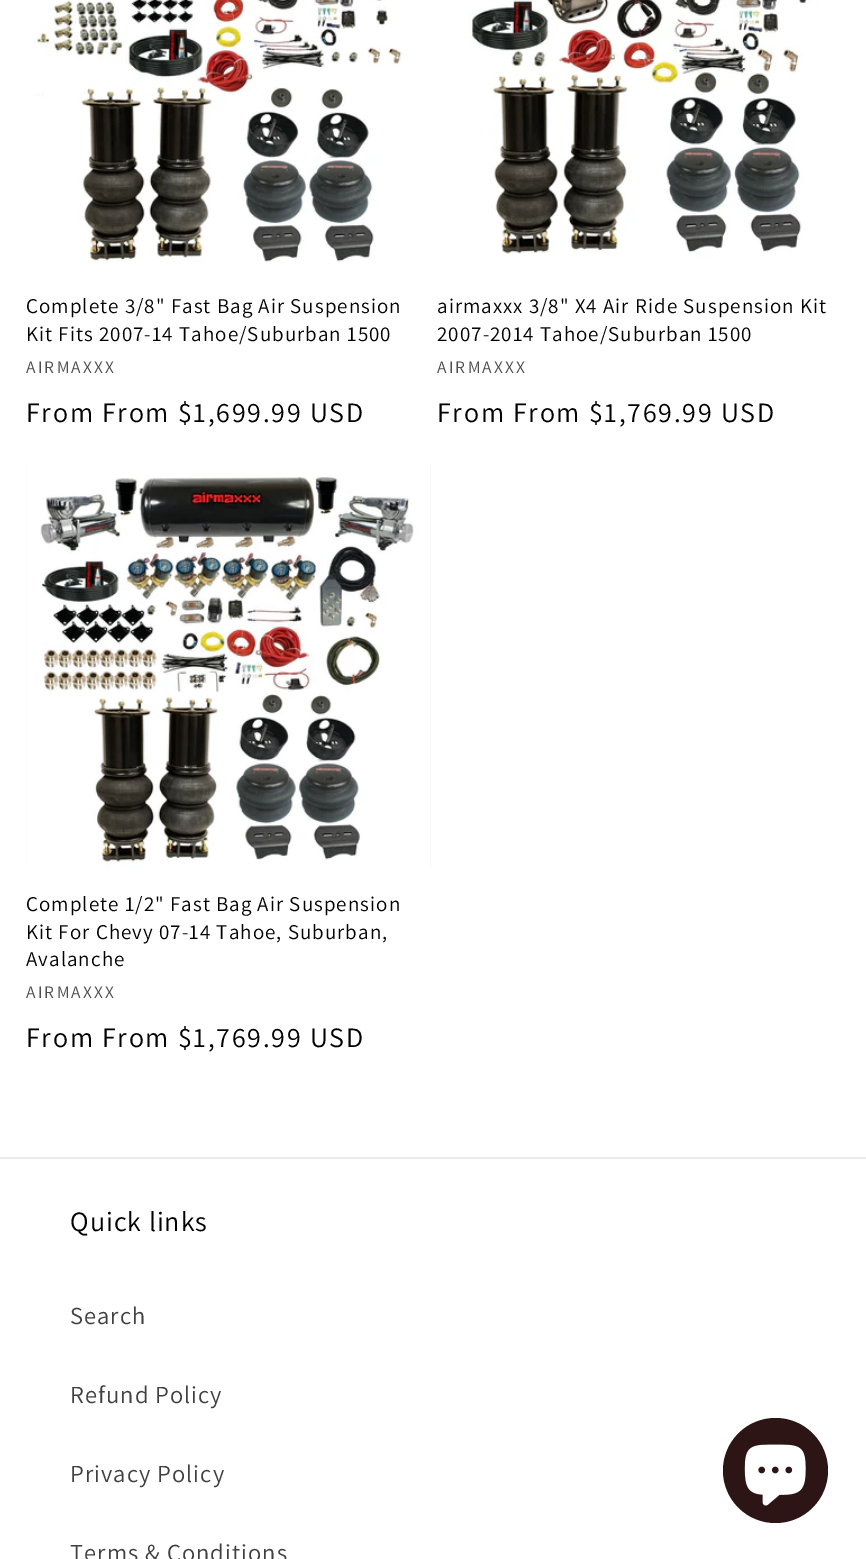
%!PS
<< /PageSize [866 1559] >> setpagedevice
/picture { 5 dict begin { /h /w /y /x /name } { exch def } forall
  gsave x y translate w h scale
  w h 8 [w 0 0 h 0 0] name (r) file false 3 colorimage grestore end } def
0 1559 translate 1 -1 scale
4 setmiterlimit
1 setgray
0 0 866 1559 rectfill
(img1.rgb) 26 0 405 270 picture
/Assistant-Regular [21 0 0 -21 0 0] selectfont
0 setgray
26 313 moveto 1.05 0 (Complete 3/8" Fast Bag Air Suspension) ashow
26 341 moveto 1.05 0 (Kit Fits 2007-14 Tahoe/Suburban 1500) ashow
/Assistant-Regular [17.5 0 0 -17.5 0 0] selectfont
0.302 setgray
26 373 moveto 2.25 0 (AIRMAXXX) ashow
/Assistant-Regular [28 0 0 -28 0 0] selectfont
0 setgray
26 422 moveto 1.75 0 (From From $1,699.99 USD) ashow
(img2.rgb) 438 0 402 270 picture
/Assistant-Regular [21 0 0 -21 0 0] selectfont
437 313 moveto 1.05 0 (airmaxxx 3/8" X4 Air Ride Suspension Kit) ashow
437 341 moveto 1.05 0 (2007-2014 Tahoe/Suburban 1500) ashow
/Assistant-Regular [17.5 0 0 -17.5 0 0] selectfont
0.302 setgray
437 373 moveto 2.25 0 (AIRMAXXX) ashow
/Assistant-Regular [28 0 0 -28 0 0] selectfont
0 setgray
437 422 moveto 1.75 0 (From From $1,769.99 USD) ashow
0.953 setgray
26 464 405 404 rectfill
(img3.rgb) 26 464 405 404 picture
/Assistant-Regular [21 0 0 -21 0 0] selectfont
0 setgray
26 911 moveto 1.05 0 (Complete 1/2" Fast Bag Air Suspension) ashow
26 939 moveto 1.05 0 (Kit For Chevy 07-14 Tahoe, Suburban,) ashow
26 966 moveto 1.05 0 (Avalanche) ashow
/Assistant-Regular [17.5 0 0 -17.5 0 0] selectfont
0.302 setgray
26 998 moveto 2.25 0 (AIRMAXXX) ashow
/Assistant-Regular [28 0 0 -28 0 0] selectfont
0 setgray
26 1047 moveto 1.75 0 (From From $1,769.99 USD) ashow
0.922 setgray
0 1157 866 2 rectfill
0 setgray
70 1231 moveto 1.05 0 (Quick links) ashow
/Assistant-Regular [24.5 0 0 -24.5 0 0] selectfont
0.251 setgray
70 1324 moveto 1.05 0 (Search) ashow
70 1403 moveto 1.05 0 (Refund Policy) ashow
70 1482 moveto 1.05 0 (Privacy Policy) ashow
70 1561 moveto 1.05 0 (Terms & Conditions) ashow
0.176 0.082 0.082 setrgbcolor
newpath 775.5 1470.5 52.5 0 360 arc closepath fill
(img4.rgb) 744 1444 62 62 picture
showpage
